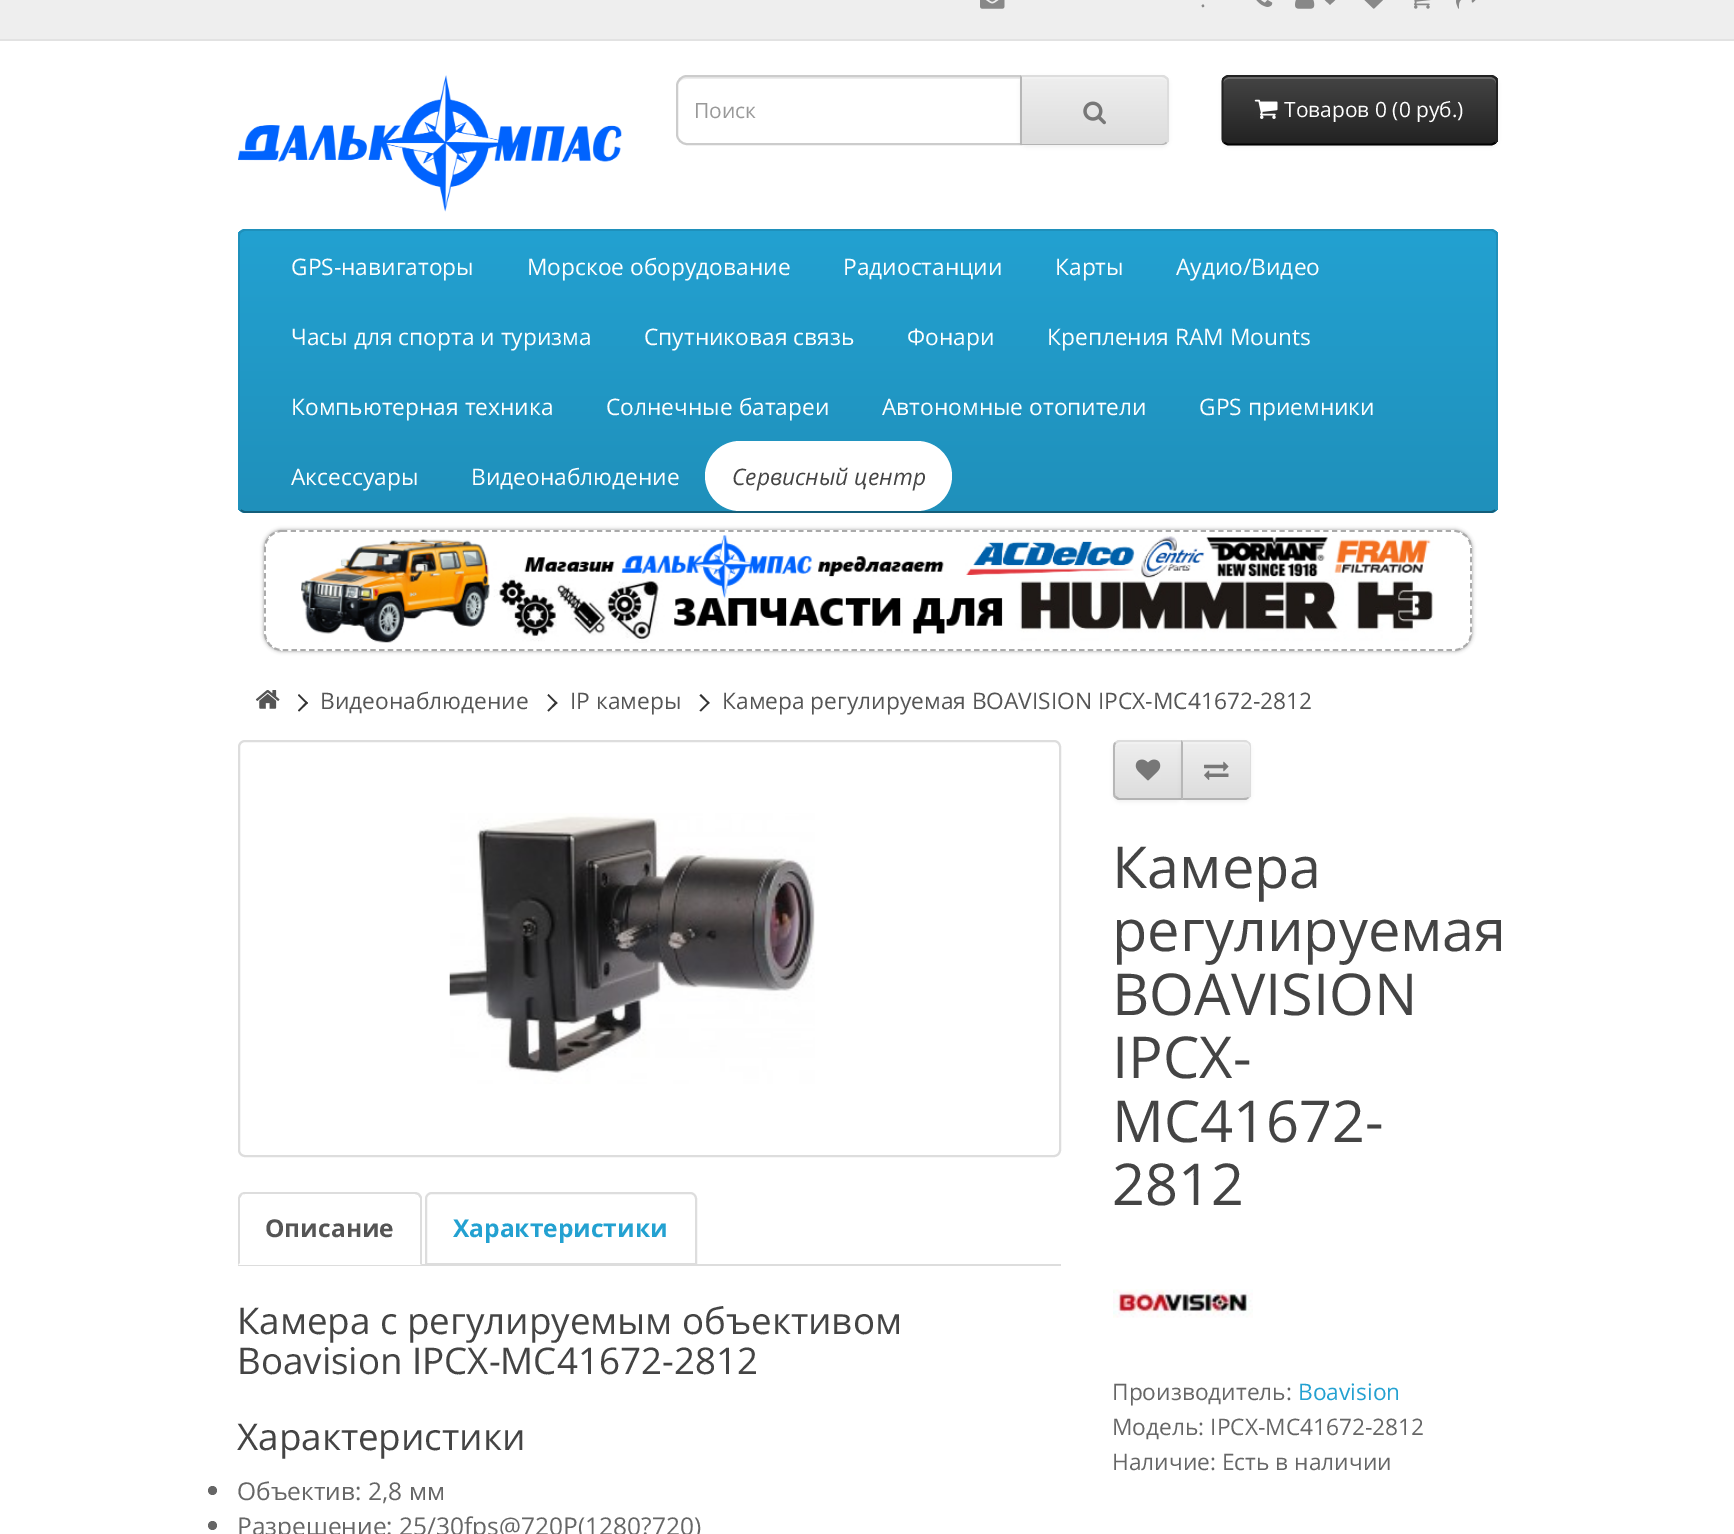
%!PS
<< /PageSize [1734 1534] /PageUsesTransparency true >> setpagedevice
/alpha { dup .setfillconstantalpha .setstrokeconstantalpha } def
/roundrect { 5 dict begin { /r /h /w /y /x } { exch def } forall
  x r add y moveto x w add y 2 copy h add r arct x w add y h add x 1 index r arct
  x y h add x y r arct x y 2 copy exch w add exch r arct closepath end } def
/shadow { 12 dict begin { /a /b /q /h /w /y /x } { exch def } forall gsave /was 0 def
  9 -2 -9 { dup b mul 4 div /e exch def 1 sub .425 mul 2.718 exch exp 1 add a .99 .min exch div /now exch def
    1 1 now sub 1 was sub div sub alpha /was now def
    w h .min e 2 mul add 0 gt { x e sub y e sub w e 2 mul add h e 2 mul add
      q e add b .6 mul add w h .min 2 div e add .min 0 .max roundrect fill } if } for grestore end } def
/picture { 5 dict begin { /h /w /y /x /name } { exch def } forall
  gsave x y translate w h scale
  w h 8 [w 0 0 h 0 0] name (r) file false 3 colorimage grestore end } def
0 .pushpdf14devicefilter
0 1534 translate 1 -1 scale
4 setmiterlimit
1 setgray
0 0 1734 1534 rectfill
0.933 setgray
0 0 1734 39 rectfill
0.886 setgray
0 39 1734 2 rectfill
(img1.rgb) 980 0 25 9 picture
/OpenSans-Regular [22.75 0 0 -22.75 0 0] selectfont
0.533 setgray
1200 7 moveto (.) show
(img2.rgb) 1256 0 17 7 picture
(img3.rgb) 1295 0 20 9 picture
newpath 1323 -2 moveto 1337 -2 lineto 1330 5 lineto closepath fill
(img4.rgb) 1364 0 19 9 picture
(img5.rgb) 1414 0 17 9 picture
(img6.rgb) 1456 0 20 9 picture
(img7.rgb) 238 75 384 137 picture
0.925 setgray
newpath 686 79 moveto 1020 79 lineto 1020 77 lineto 686 77 lineto 680 77 677 82 677 88 curveto 677 83 681 79 686 79 curveto closepath fill
0.8 setgray
2 setlinewidth
newpath 687 76 moveto 1021 76 lineto 1021 144 lineto 687 144 lineto 681.5 144 677 139.5 677 134 curveto 677 86 lineto 677 80.5 681.5 76 687 76 curveto closepath stroke
/OpenSans-Regular [21 0 0 -21 0 0] selectfont
0.6 setgray
694 118 moveto (Поиск) show
0 setgray
1020 77 149 70 7 2 0.05 shadow
gsave
newpath 1020 75 moveto 1162 75 lineto 1166 75 1169 78 1169 82 curveto 1169 138 lineto 1169 142 1166 145 1162 145 curveto 1020 145 lineto closepath clip newpath
gsave newpath 1022 77 moveto 1169 77 lineto 1169 144 lineto 1022 144 lineto closepath clip newpath
<< /ShadingType 2 /ColorSpace /DeviceRGB /Coords [1095 77 1095 144] /Extend [true true] /Function << /FunctionType 2 /Domain [0 1] /C0 [0.933 0.933 0.933] /C1 [0.867 0.867 0.867] /N 1 >> >> shfill grestore
grestore
0.945 setgray
newpath 1022 79 moveto 1162 79 lineto 1165 79 1167 81 1167 84 curveto 1167 82 lineto 1167 79 1165 77 1162 77 curveto 1022 77 lineto closepath fill
0.867 setgray
newpath 1022 77 moveto 1020 75 lineto 1164 75 lineto 1167 77 lineto 1166 79 lineto 1165 78 1164 77 1162 77 curveto closepath fill
newpath 1169 138 moveto 1169 82 lineto 1169 80 1168 78 1167 77 curveto 1166 79 lineto 1167 79 1167 81 1167 82 curveto 1167 138 lineto 1167 139 1167 141 1166 142 curveto 1167 143 lineto 1168 142 1169 140 1169 138 curveto closepath fill
0.702 setgray
newpath 1167 143 moveto 1166 144 1164 145 1162 145 curveto 1020 145 lineto 1022 144 lineto 1162 144 lineto 1164 144 1165 143 1166 142 curveto closepath fill
0.718 setgray
newpath 1022 77 moveto 1022 144 lineto 1020 145 lineto 1020 75 lineto closepath fill
(img8.rgb) 1083 101 23 24 picture
0 setgray
1222 77 276 70 7 2 0.05 shadow
0.212 setgray
1222 75 276 70 7 roundrect fill
gsave
1222 75 276 70 7 roundrect clip newpath
gsave newpath 1222 77 moveto 1498 77 lineto 1498 144 lineto 1222 144 lineto closepath clip newpath
<< /ShadingType 2 /ColorSpace /DeviceRGB /Coords [1360 77 1360 144] /Extend [true true] /Function << /FunctionType 2 /Domain [0 1] /C0 [0.267 0.267 0.267] /C1 [0.133 0.133 0.133] /N 1 >> >> shfill grestore
grestore
0.412 setgray
newpath 1228 79 moveto 1491 79 lineto 1494 79 1496 81 1496 84 curveto 1496 82 lineto 1496 79 1494 77 1491 77 curveto 1228 77 lineto 1225 77 1223 79 1223 82 curveto 1223 84 lineto 1223 81 1226 79 1228 79 curveto closepath fill
0 setgray
1.8 setlinewidth
newpath 1495.5 142.5 moveto 1494 143.5 1492.5 144.5 1491 144.5 curveto 1228.5 144.5 lineto 1227 144.5 1225.5 143.5 1224 142.5 curveto stroke
0.133 setgray
newpath 1224 142.5 moveto 1223 141.5 1222.5 140 1222.5 138 curveto 1222.5 82 lineto 1222.5 80.5 1223 79 1224 78 curveto 1225.5 77 1227 76 1228.5 76 curveto 1491 76 lineto 1492.5 76 1494 77 1495.5 78 curveto 1496.5 79 1497 80.5 1497 82 curveto 1497 138 lineto 1497 140 1496.5 141.5 1495.5 142.5 curveto stroke
(img9.rgb) 1254 99 24 20 picture
1 setgray
1284 117 moveto (Товаров 0 \(0 руб.\)) show
0.133 0.604 0.784 setrgbcolor
238 229 1260 284 7 roundrect fill
gsave
238 229 1260 284 7 roundrect clip newpath
gsave newpath 238 231 moveto 1498 231 lineto 1498 511 lineto 238 511 lineto closepath clip newpath
<< /ShadingType 2 /ColorSpace /DeviceRGB /Coords [868 231 868 511] /Extend [true true] /Function << /FunctionType 2 /Domain [0 1] /C0 [0.137 0.631 0.82] /C1 [0.122 0.565 0.733] /N 1 >> >> shfill grestore
grestore
0.078 0.369 0.478 setrgbcolor
newpath 1495.5 510 moveto 1494 511 1492.5 512 1491 512 curveto 245 512 lineto 243.5 512 242 511 240.5 510 curveto stroke
0.122 0.565 0.733 setrgbcolor
newpath 240.5 510 moveto 239.5 509 239 507.5 239 506 curveto 239 236 lineto 239 234.5 239.5 233 240.5 232 curveto 242 231 243.5 230 245 230 curveto 1491 230 lineto 1492.5 230 1494 231 1495.5 232 curveto 1496.5 233 1497 234.5 1497 236 curveto 1497 506 lineto 1497 507.5 1496.5 509 1495.5 510 curveto stroke
/OpenSans-Regular [22.75 0 0 -22.75 0 0] selectfont
1 setgray
291 275 moveto (GPS-навигаторы) show
527 275 moveto (Морское оборудование) show
843 275 moveto (Радиостанции) show
1055 275 moveto (Карты) show
1176 275 moveto (Аудио/Видео) show
291 345 moveto (Часы для спорта и туризма) show
644 345 moveto (Спутниковая связь) show
907 345 moveto (Фонари) show
1047 345 moveto (Крепления RAM Mounts) show
291 415 moveto (Компьютерная техника) show
606 415 moveto (Солнечные батареи) show
882 415 moveto (Автономные отопители) show
1199 415 moveto (GPS приемники) show
291 485 moveto (Аксессуары) show
471 485 moveto (Видеонаблюдение) show
705 441 247 70 35 roundrect fill
/OpenSans-Italic [22.75 0 0 -22.75 0 0] selectfont
0.267 setgray
732 485 moveto (Cервисный центр) show
gsave
newpath 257 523 moveto 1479 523 lineto 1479 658 lineto 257 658 lineto closepath 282 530 moveto 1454 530 lineto 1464 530 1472 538 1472 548 curveto 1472 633 lineto 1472 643 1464 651 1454 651 curveto 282 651 lineto 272 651 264 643 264 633 curveto 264 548 lineto 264 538 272 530 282 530 curveto closepath eoclip newpath
0.6 setgray
264 530 1208 121 18 2 1 shadow
grestore
0.667 setgray
[5.25 3.5] 0 setdash
newpath 282 531 moveto 1454 531 lineto 1463.5 531 1471 538.5 1471 548 curveto 1471 633.5 lineto 1471 642.5 1463.5 650 1454 650 curveto 282 650 lineto 272.5 650 265 642.5 265 633.5 curveto 265 548 lineto 265 538.5 272.5 531 282 531 curveto closepath stroke
(img10.rgb) 301 535 1133 108 picture
(img11.rgb) 255 690 25 19 picture
0.2 setgray
newpath 298 695.5 moveto 299 694 lineto 308 703 lineto 306.5 704 lineto closepath fill
newpath 298 710.5 moveto 306.5 701.5 lineto 308 703 lineto 299 711.5 lineto closepath fill
/OpenSans-Regular [22.75 0 0 -22.75 0 0] selectfont
0.333 setgray
320 709 moveto (Видеонаблюдение) show
0.2 setgray
newpath 547.5 695.5 moveto 548.5 694 lineto 557.5 703 lineto 556 704 lineto closepath fill
newpath 547.5 710.5 moveto 556 701.5 lineto 557.5 703 lineto 548.5 711.5 lineto closepath fill
0.333 setgray
570 709 moveto (IP камеры) show
0.2 setgray
newpath 699.5 695.5 moveto 701 694 lineto 709.5 703 lineto 708.5 704 lineto closepath fill
newpath 699.5 710.5 moveto 708.5 701.5 lineto 709.5 703 lineto 701 711.5 lineto closepath fill
0.333 setgray
722 709 moveto (Камера регулируемая BOAVISION IPCX-MC41672-2812) show
0.867 setgray
2 setlinewidth
[] 0 setdash
239 741 821 415 6 roundrect stroke
(img12.rgb) 449 813 366 271 picture
238 1264 823 2 rectfill
1 setgray
newpath 245 1192 moveto 415 1192 lineto 419 1192 422 1195 422 1199 curveto 422 1265 lineto 238 1265 lineto 238 1199 lineto 238 1195 241 1192 245 1192 curveto closepath fill
0.867 setgray
newpath 245 1192 moveto 243 1192 241 1193 240 1194 curveto 242 1195 lineto 242 1194 244 1194 245 1194 curveto 415 1194 lineto 418 1195 lineto 420 1194 lineto 419 1193 417 1192 415 1192 curveto closepath fill
newpath 420 1194 moveto 422 1197 lineto 422 1265 lineto 420 1264 lineto 420 1198 lineto 418 1195 lineto closepath fill
newpath 238 1199 moveto 238 1265 lineto 240 1263 lineto 240 1198 lineto 242 1195 lineto 240 1194 lineto 239 1195 238 1197 238 1199 curveto closepath fill
/OpenSans-Bold [24.5 0 0 -24.5 0 0] selectfont
0.333 setgray
265 1237 moveto (Описание) show
0.867 setgray
newpath 432 1193 moveto 690 1193 lineto 693.5 1193 696 1195.5 696 1199 curveto 696 1264 lineto 426 1264 lineto 426 1199 lineto 426 1195.5 428.5 1193 432 1193 curveto closepath stroke
0.137 0.631 0.82 setrgbcolor
453 1237 moveto (Характеристики) show
/OpenSans-Regular [36.75 0 0 -36.75 0 0] selectfont
0.267 setgray
237 1334 moveto (Камера с регулируемым объективом) show
237 1374 moveto (Boavision IPCX-MC41672-2812) show
237 1450 moveto (Характеристики) show
0.4 setgray
newpath 212.5 1490.5 4.5 0 360 arc closepath fill
/OpenSans-Regular [24.5 0 0 -24.5 0 0] selectfont
237 1500 moveto (Объектив: 2,8 мм) show
newpath 212.5 1525.5 4.5 0 360 arc closepath fill
237 1535 moveto (Разрешение: 25/30fps@720P\(1280?720\)) show
0 setgray
1113 742 70 60 7 2 0.05 shadow
gsave
newpath 1120 740 moveto 1183 740 lineto 1183 800 lineto 1120 800 lineto 1116 800 1113 797 1113 793 curveto 1113 747 lineto 1113 743 1116 740 1120 740 curveto closepath clip newpath
gsave newpath 1113 742 moveto 1181 742 lineto 1181 798 lineto 1113 798 lineto closepath clip newpath
<< /ShadingType 2 /ColorSpace /DeviceRGB /Coords [1148 742 1148 798] /Extend [true true] /Function << /FunctionType 2 /Domain [0 1] /C0 [0.933 0.933 0.933] /C1 [0.867 0.867 0.867] /N 1 >> >> shfill grestore
grestore
0.945 setgray
newpath 1120 744 moveto 1181 744 lineto 1181 742 lineto 1120 742 lineto 1117 742 1115 744 1115 747 curveto 1115 749 lineto 1115 746 1117 744 1120 744 curveto closepath fill
0.867 setgray
newpath 1120 742 moveto 1118 742 1117 743 1116 744 curveto 1115 742 lineto 1118 740 lineto 1183 740 lineto 1181 742 lineto closepath fill
0.702 setgray
newpath 1183 800 moveto 1118 800 lineto 1115 798 lineto 1116 796 lineto 1119 798 lineto 1181 798 lineto closepath fill
0.718 setgray
newpath 1113 747 moveto 1113 793 lineto 1113 795 1114 797 1115 798 curveto 1116 796 lineto 1115 796 1115 794 1115 793 curveto 1115 747 lineto 1115 746 1115 744 1116 744 curveto 1115 742 lineto 1114 743 1113 745 1113 747 curveto closepath fill
(img13.rgb) 1135 759 26 22 picture
0 setgray
1181 742 70 60 7 2 0.05 shadow
gsave
newpath 1181 740 moveto 1244 740 lineto 1248 740 1251 743 1251 747 curveto 1251 793 lineto 1251 797 1248 800 1244 800 curveto 1181 800 lineto closepath clip newpath
gsave newpath 1183 742 moveto 1251 742 lineto 1251 798 lineto 1183 798 lineto closepath clip newpath
<< /ShadingType 2 /ColorSpace /DeviceRGB /Coords [1216 742 1216 798] /Extend [true true] /Function << /FunctionType 2 /Domain [0 1] /C0 [0.933 0.933 0.933] /C1 [0.867 0.867 0.867] /N 1 >> >> shfill grestore
grestore
0.945 setgray
newpath 1183 744 moveto 1244 744 lineto 1247 744 1250 746 1250 749 curveto 1250 747 lineto 1250 744 1248 742 1245 742 curveto 1183 742 lineto closepath fill
0.867 setgray
newpath 1183 742 moveto 1181 740 lineto 1246 740 lineto 1249 742 lineto 1248 743 lineto 1247 742 1246 742 1244 742 curveto closepath fill
newpath 1249 742 moveto 1250 743 1251 745 1251 747 curveto 1251 793 lineto 1251 795 1250 797 1249 798 curveto 1248 797 lineto 1249 796 1250 794 1250 793 curveto 1250 747 lineto 1250 746 1249 744 1248 743 curveto closepath fill
0.702 setgray
newpath 1249 798 moveto 1246 800 lineto 1181 800 lineto 1183 798 lineto 1244 798 lineto 1246 798 1247 798 1248 797 curveto closepath fill
0.718 setgray
newpath 1181 800 moveto 1183 798 lineto 1183 742 lineto 1181 740 lineto closepath fill
(img14.rgb) 1204 761 25 19 picture
/OpenSans-Regular [57.75 0 0 -57.75 0 0] selectfont
0.267 setgray
1112 888 moveto (Камера) show
1112 951 moveto (регулируемая) show
1112 1015 moveto (BOAVISION) show
1112 1078 moveto (IPCX-) show
1112 1142 moveto (MC41672-) show
1112 1205 moveto (2812) show
(img15.rgb) 1113 1289 140 29 picture
/OpenSans-Regular [22.75 0 0 -22.75 0 0] selectfont
0.4 setgray
1112 1400 moveto (Производитель:) show
0.137 0.631 0.82 setrgbcolor
1298 1400 moveto (Boavision) show
0.4 setgray
1112 1435 moveto (Модель: IPCX-MC41672-2812) show
1112 1470 moveto (Наличие: Есть в наличии) show
.poppdf14devicefilter showpage
